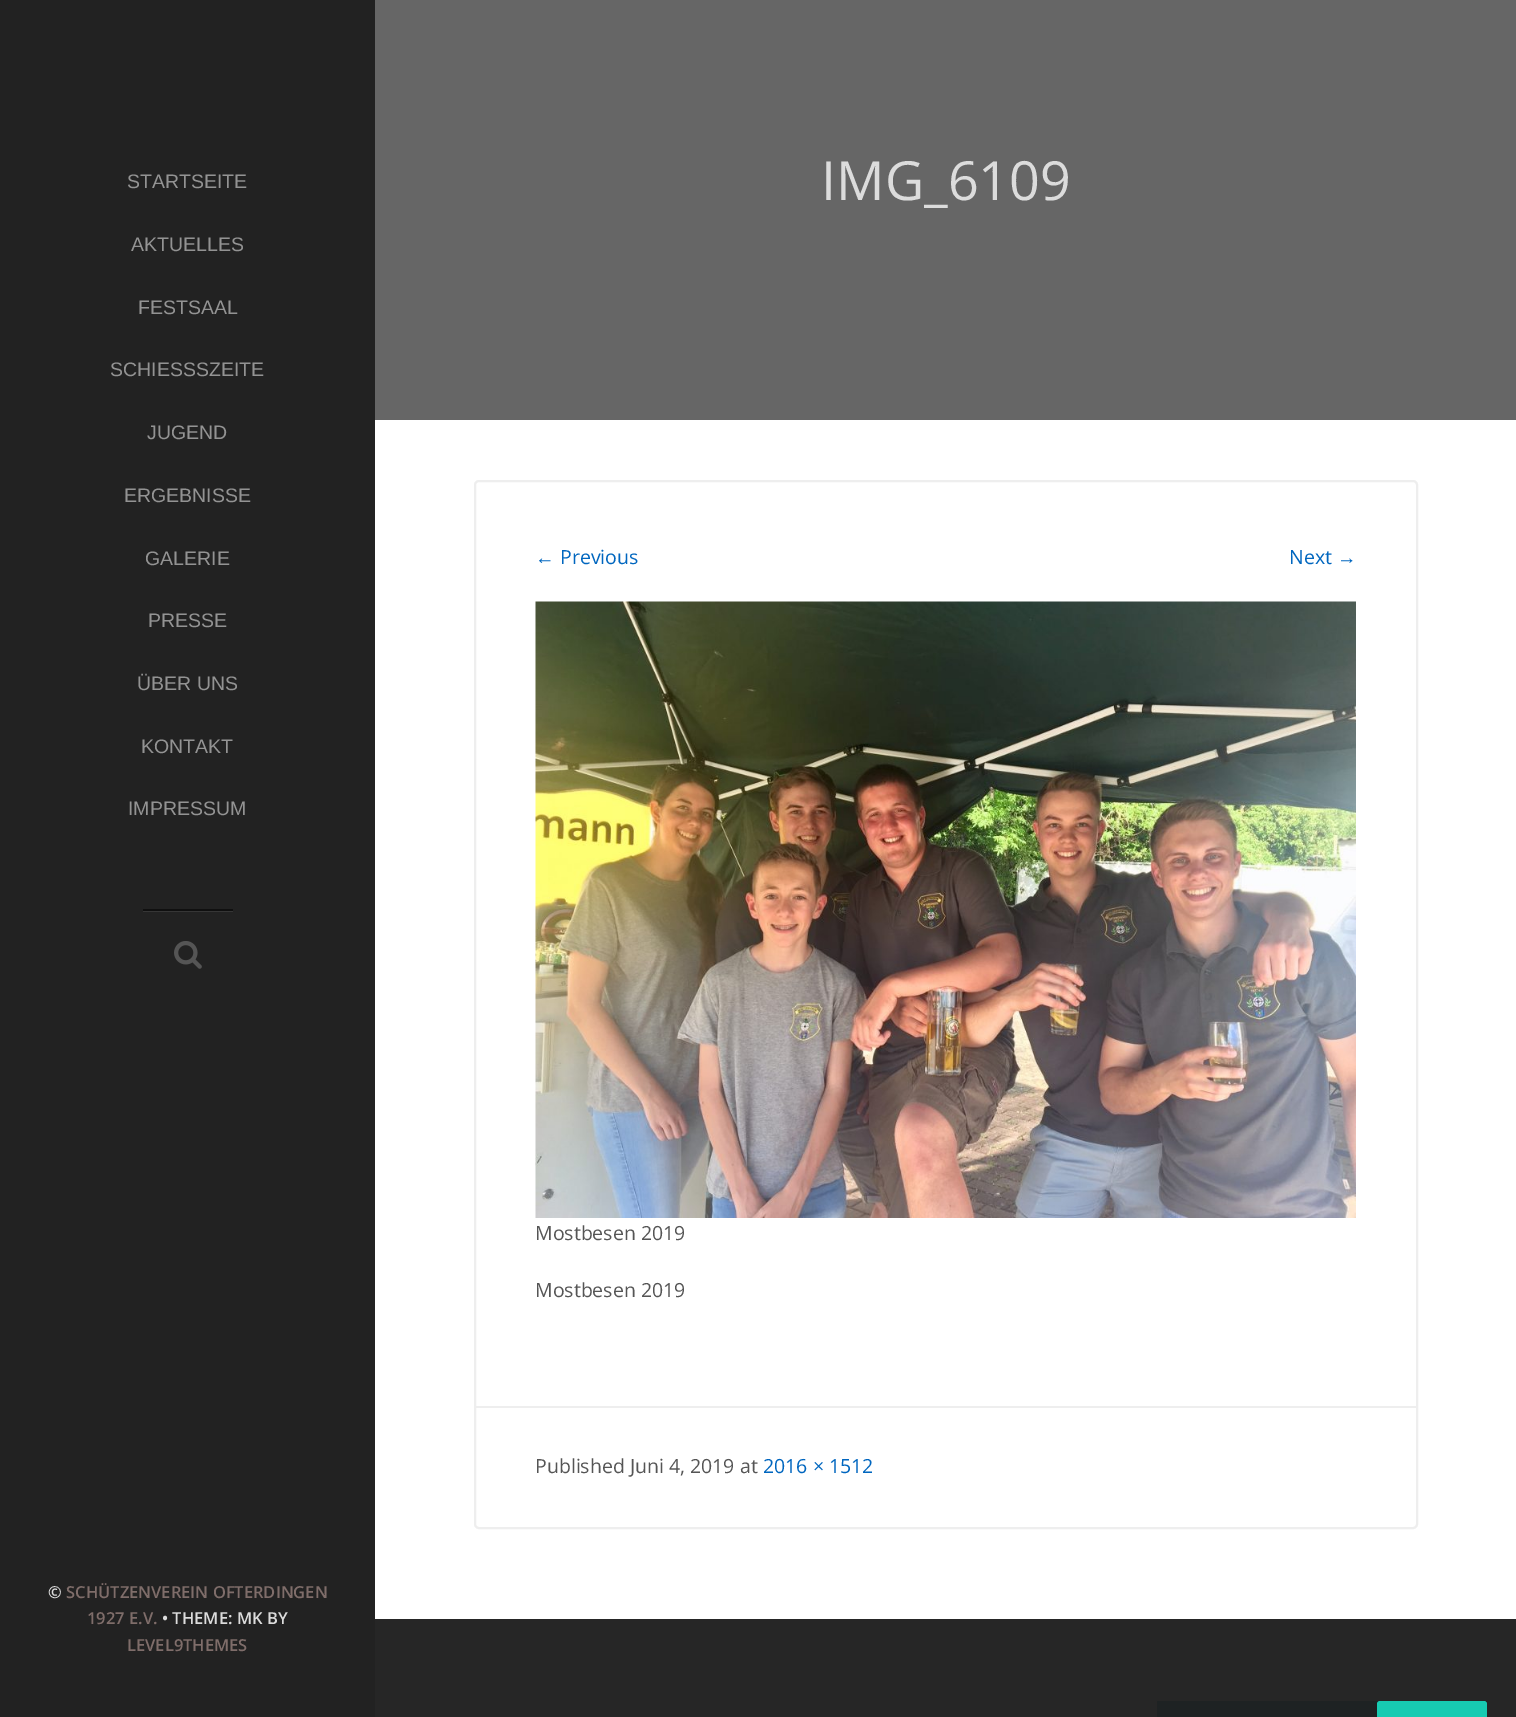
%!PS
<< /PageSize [1516 1717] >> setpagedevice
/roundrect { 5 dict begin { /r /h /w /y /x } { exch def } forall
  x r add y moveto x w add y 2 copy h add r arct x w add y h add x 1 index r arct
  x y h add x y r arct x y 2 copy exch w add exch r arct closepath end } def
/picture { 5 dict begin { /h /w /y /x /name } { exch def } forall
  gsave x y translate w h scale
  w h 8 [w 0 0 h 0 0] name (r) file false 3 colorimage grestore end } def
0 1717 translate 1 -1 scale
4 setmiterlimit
0.133 setgray
0 0 1516 1717 rectfill
/LiberationSans-Regular [19.5 0 0 -19.5 0 0] selectfont
0.576 setgray
127 188 moveto (STARTSEITE) show
131 251 moveto (AKTUELLES) show
138 314 moveto (FESTSAAL) show
110 376 moveto (SCHIESSSZEITE) show
147 439 moveto (JUGEND) show
124 502 moveto (ERGEBNISSE) show
145 565 moveto (GALERIE) show
148 627 moveto (PRESSE) show
137 690 moveto (ÜBER UNS) show
141 753 moveto (KONTAKT) show
128 815 moveto (IMPRESSUM) show
0.212 setgray
143 911 90 1 rectfill
0.063 setgray
143 909 90 2 rectfill
(img1.rgb) 174 941 28 28 picture
1 setgray
375 420 1141 1199 rectfill
0.4 setgray
375 0 1141 420 rectfill
/OpenSans-Regular [54 0 0 -54 0 0] selectfont
0.863 setgray
821 200 moveto (IMG_6109) show
0.933 setgray
2 setlinewidth
475 481 942 1047 4 roundrect stroke
/LiberationSans-Regular [19.5 0 0 -19.5 0 0] selectfont
0 0.4 0.749 setrgbcolor
535 564 moveto (←) show
/OpenSans-Regular [19.5 0 0 -19.5 0 0] selectfont
560 564 moveto (Previous) show
1289 564 moveto (Next) show
/LiberationSans-Regular [19.5 0 0 -19.5 0 0] selectfont
1337 564 moveto (→) show
(img2.rgb) 535 601 821 617 picture
/OpenSans-Regular [19.5 0 0 -19.5 0 0] selectfont
0.333 setgray
535 1240 moveto (Mostbesen 2019) show
535 1297 moveto (Mostbesen 2019) show
0.933 setgray
476 1406 940 2 rectfill
0.333 setgray
535 1473 moveto (Published Juni 4, 2019 at) show
0 0.4 0.749 setrgbcolor
763 1473 moveto (2016 × 1512) show
0.149 setgray
375 1619 1141 98 rectfill
0.118 0.133 0.137 setrgbcolor
1157 1701 330 16 rectfill
0.09 0.796 0.698 setrgbcolor
1377 1701 110 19 3 roundrect fill
/OpenSans-SemiBold [16.5 0 0 -16.5 0 0] selectfont
0.863 setgray
48 1598 moveto (©) show
0.498 0.427 0.416 setrgbcolor
66 1598 moveto (SCHÜTZENVEREIN OFTERDINGEN) show
87 1624 moveto (1927 E.V.) show
0.863 setgray
162 1624 moveto (• THEME: MK BY) show
0.498 0.427 0.416 setrgbcolor
127 1651 moveto (LEVEL9THEMES) show
showpage
